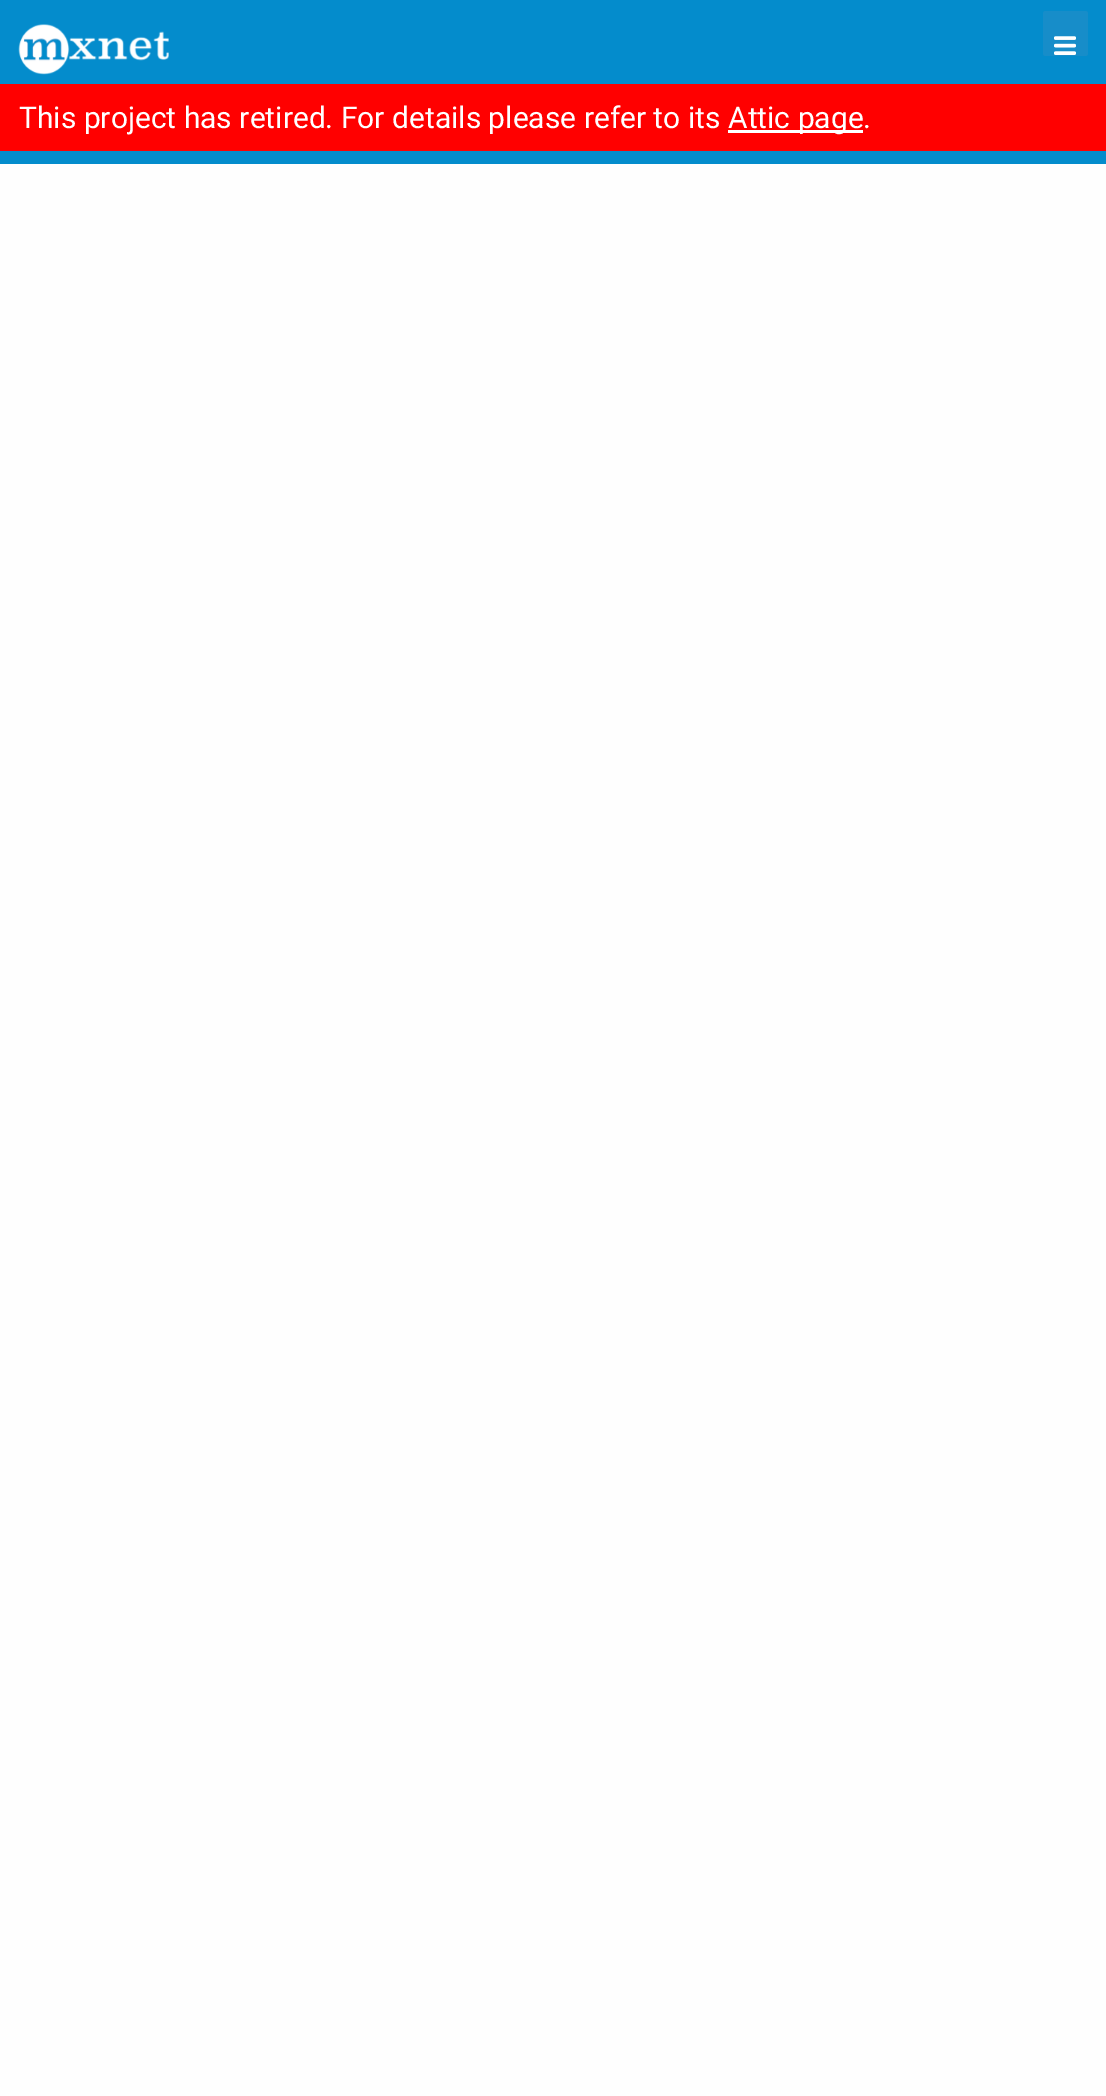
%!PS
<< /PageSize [1106 2096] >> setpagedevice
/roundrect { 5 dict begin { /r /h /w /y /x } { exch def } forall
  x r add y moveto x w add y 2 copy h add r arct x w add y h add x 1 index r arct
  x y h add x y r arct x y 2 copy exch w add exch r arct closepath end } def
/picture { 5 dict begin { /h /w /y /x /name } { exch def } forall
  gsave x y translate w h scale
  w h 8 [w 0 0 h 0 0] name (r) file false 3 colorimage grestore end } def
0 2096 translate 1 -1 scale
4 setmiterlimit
0.996 setgray
0 0 1106 2096 rectfill
0.016 0.549 0.8 setrgbcolor
0 0 1106 164 rectfill
(img1.rgb) 18 24 151 51 picture
0.09 0.553 0.788 setrgbcolor
1043 11 45 45 2.5 roundrect fill
(img2.rgb) 1054 36 22 19 picture
1 0 0 setrgbcolor
0 84 1106 67 rectfill
/Roboto-Regular [30 0 0 -30 0 0] selectfont
1 setgray
19 128 moveto (This project has retired. For details please refer to its) show
728 130 135 3 rectfill
728 128 moveto (Attic page.) show
showpage
